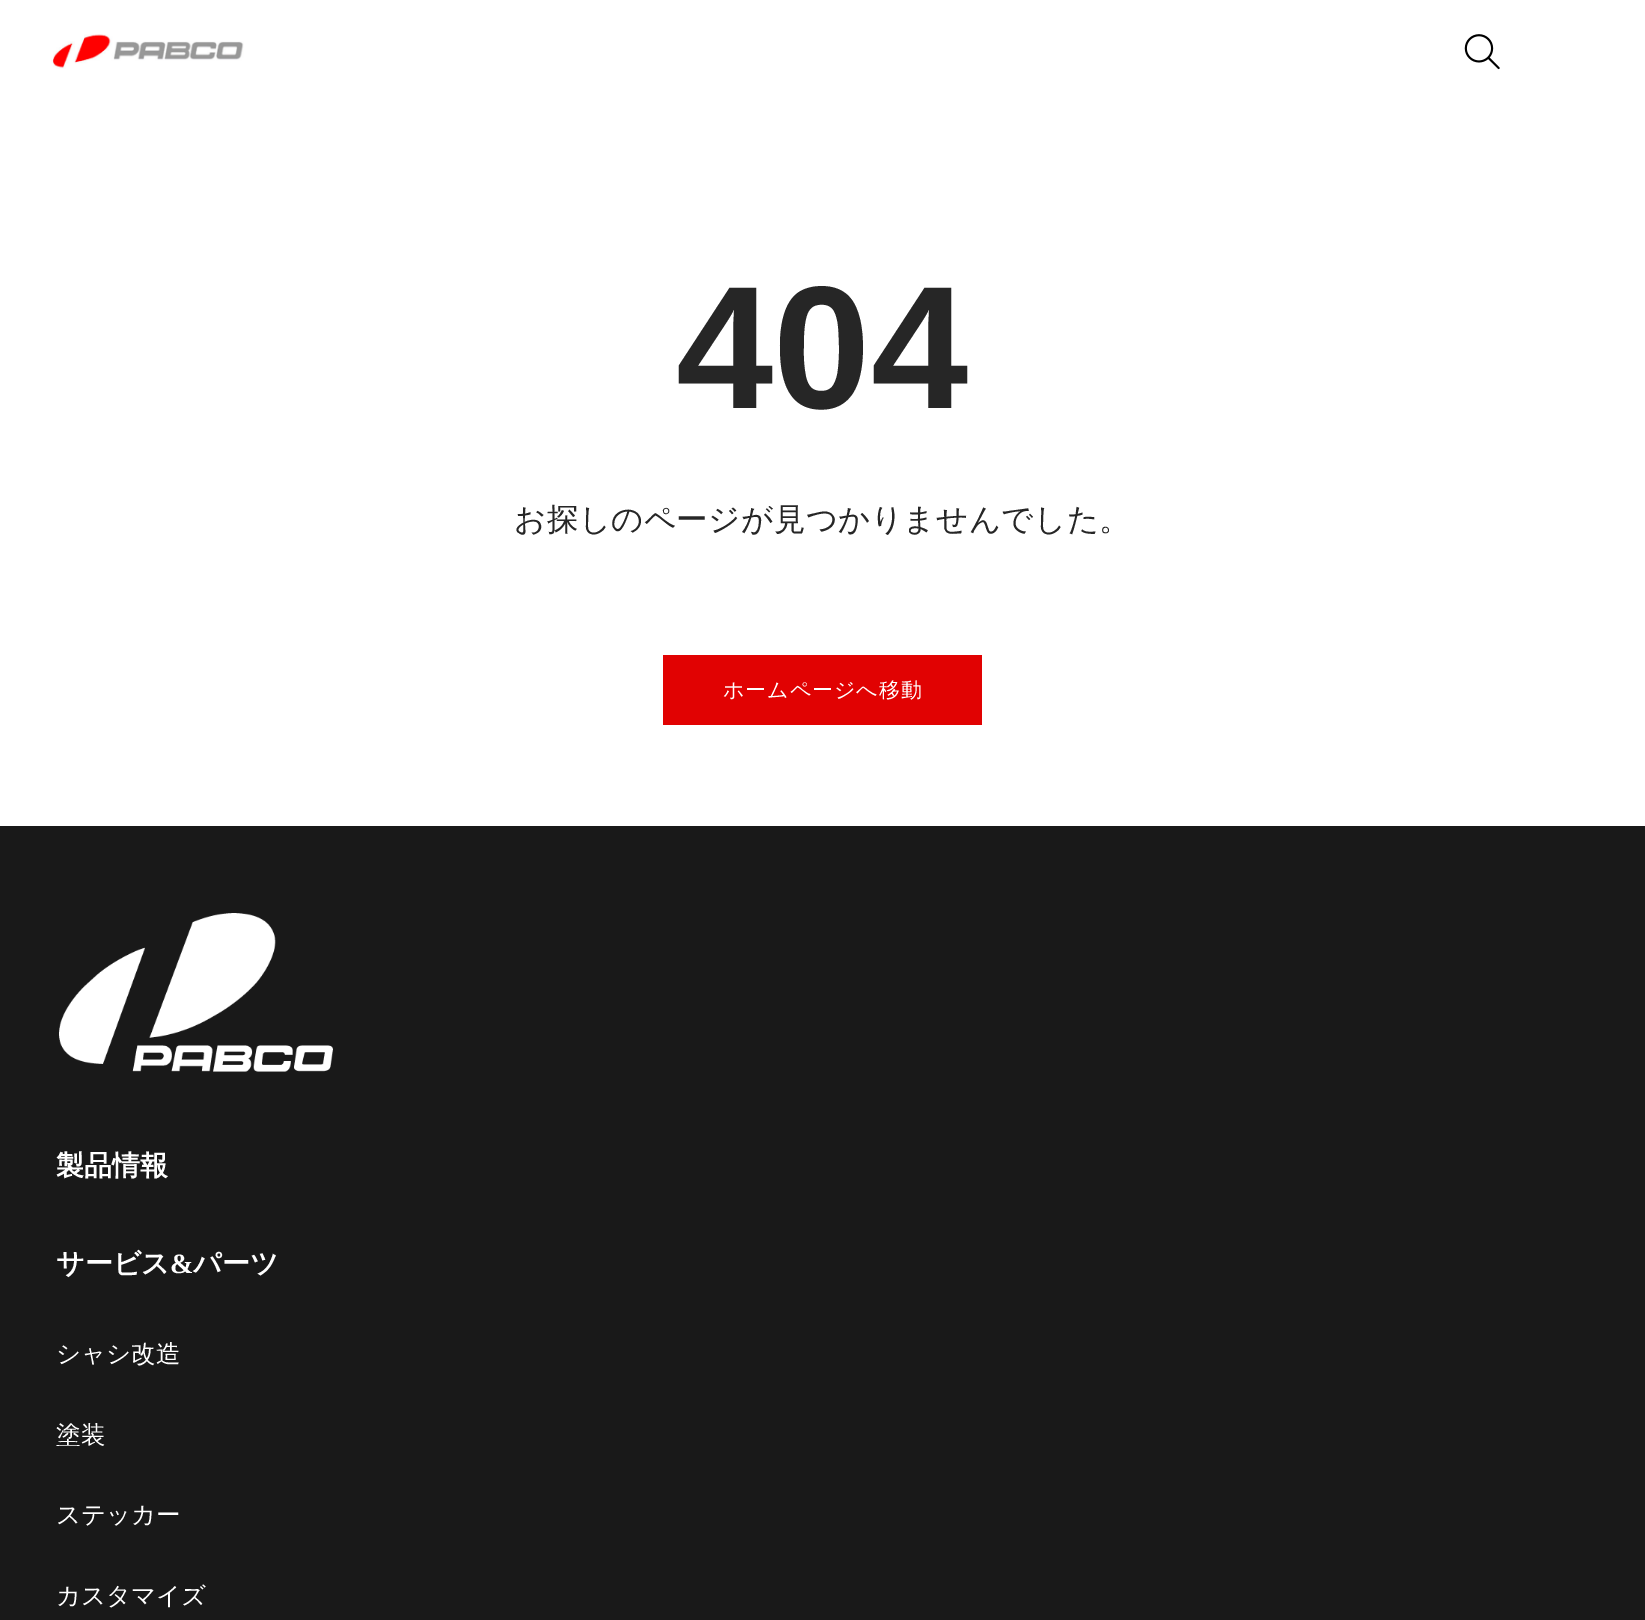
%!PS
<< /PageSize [1645 1620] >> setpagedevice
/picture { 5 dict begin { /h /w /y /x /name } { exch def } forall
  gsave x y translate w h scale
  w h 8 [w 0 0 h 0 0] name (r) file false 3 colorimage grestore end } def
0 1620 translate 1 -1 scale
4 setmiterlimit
1 setgray
0 0 1645 1620 rectfill
(img1.rgb) 51 34 193 35 picture
(img2.rgb) 1464 34 36 36 picture
/LiberationSans-Bold [175 0 0 -175 0 0] selectfont
0.149 setgray
676 408 moveto (404) show
/WenQuanYiZenHei-Medium [31.5 0 0 -31.5 0 0] selectfont
514 530 moveto 0.4 0 (お探しのページが見つかりませんでした。) ashow
0.882 0.008 0.008 setrgbcolor
663 655 319 70 rectfill
/WenQuanYiZenHei-Medium [21 0 0 -21 0 0] selectfont
1 setgray
723 697 moveto 0.9 0 (ホームページへ移動) ashow
0.098 setgray
0 826 1645 794 rectfill
(img3.rgb) 59 913 274 159 picture
/WenQuanYiZenHei-Bold [28 0 0 -28 0 0] selectfont
1 setgray
56 1175 moveto (製品情報) show
56 1273 moveto (サービス) show
/LiberationSerif-Bold [28 0 0 -28 0 0] selectfont
170 1273 moveto (&) show
/WenQuanYiZenHei-Bold [28 0 0 -28 0 0] selectfont
193 1273 moveto (パーツ) show
/WenQuanYiZenHei-Medium [24.5 0 0 -24.5 0 0] selectfont
56 1362 moveto (シャシ改造) show
56 1443 moveto (塗装) show
56 1523 moveto (ステッカー) show
56 1604 moveto (カスタマイズ) show
showpage
